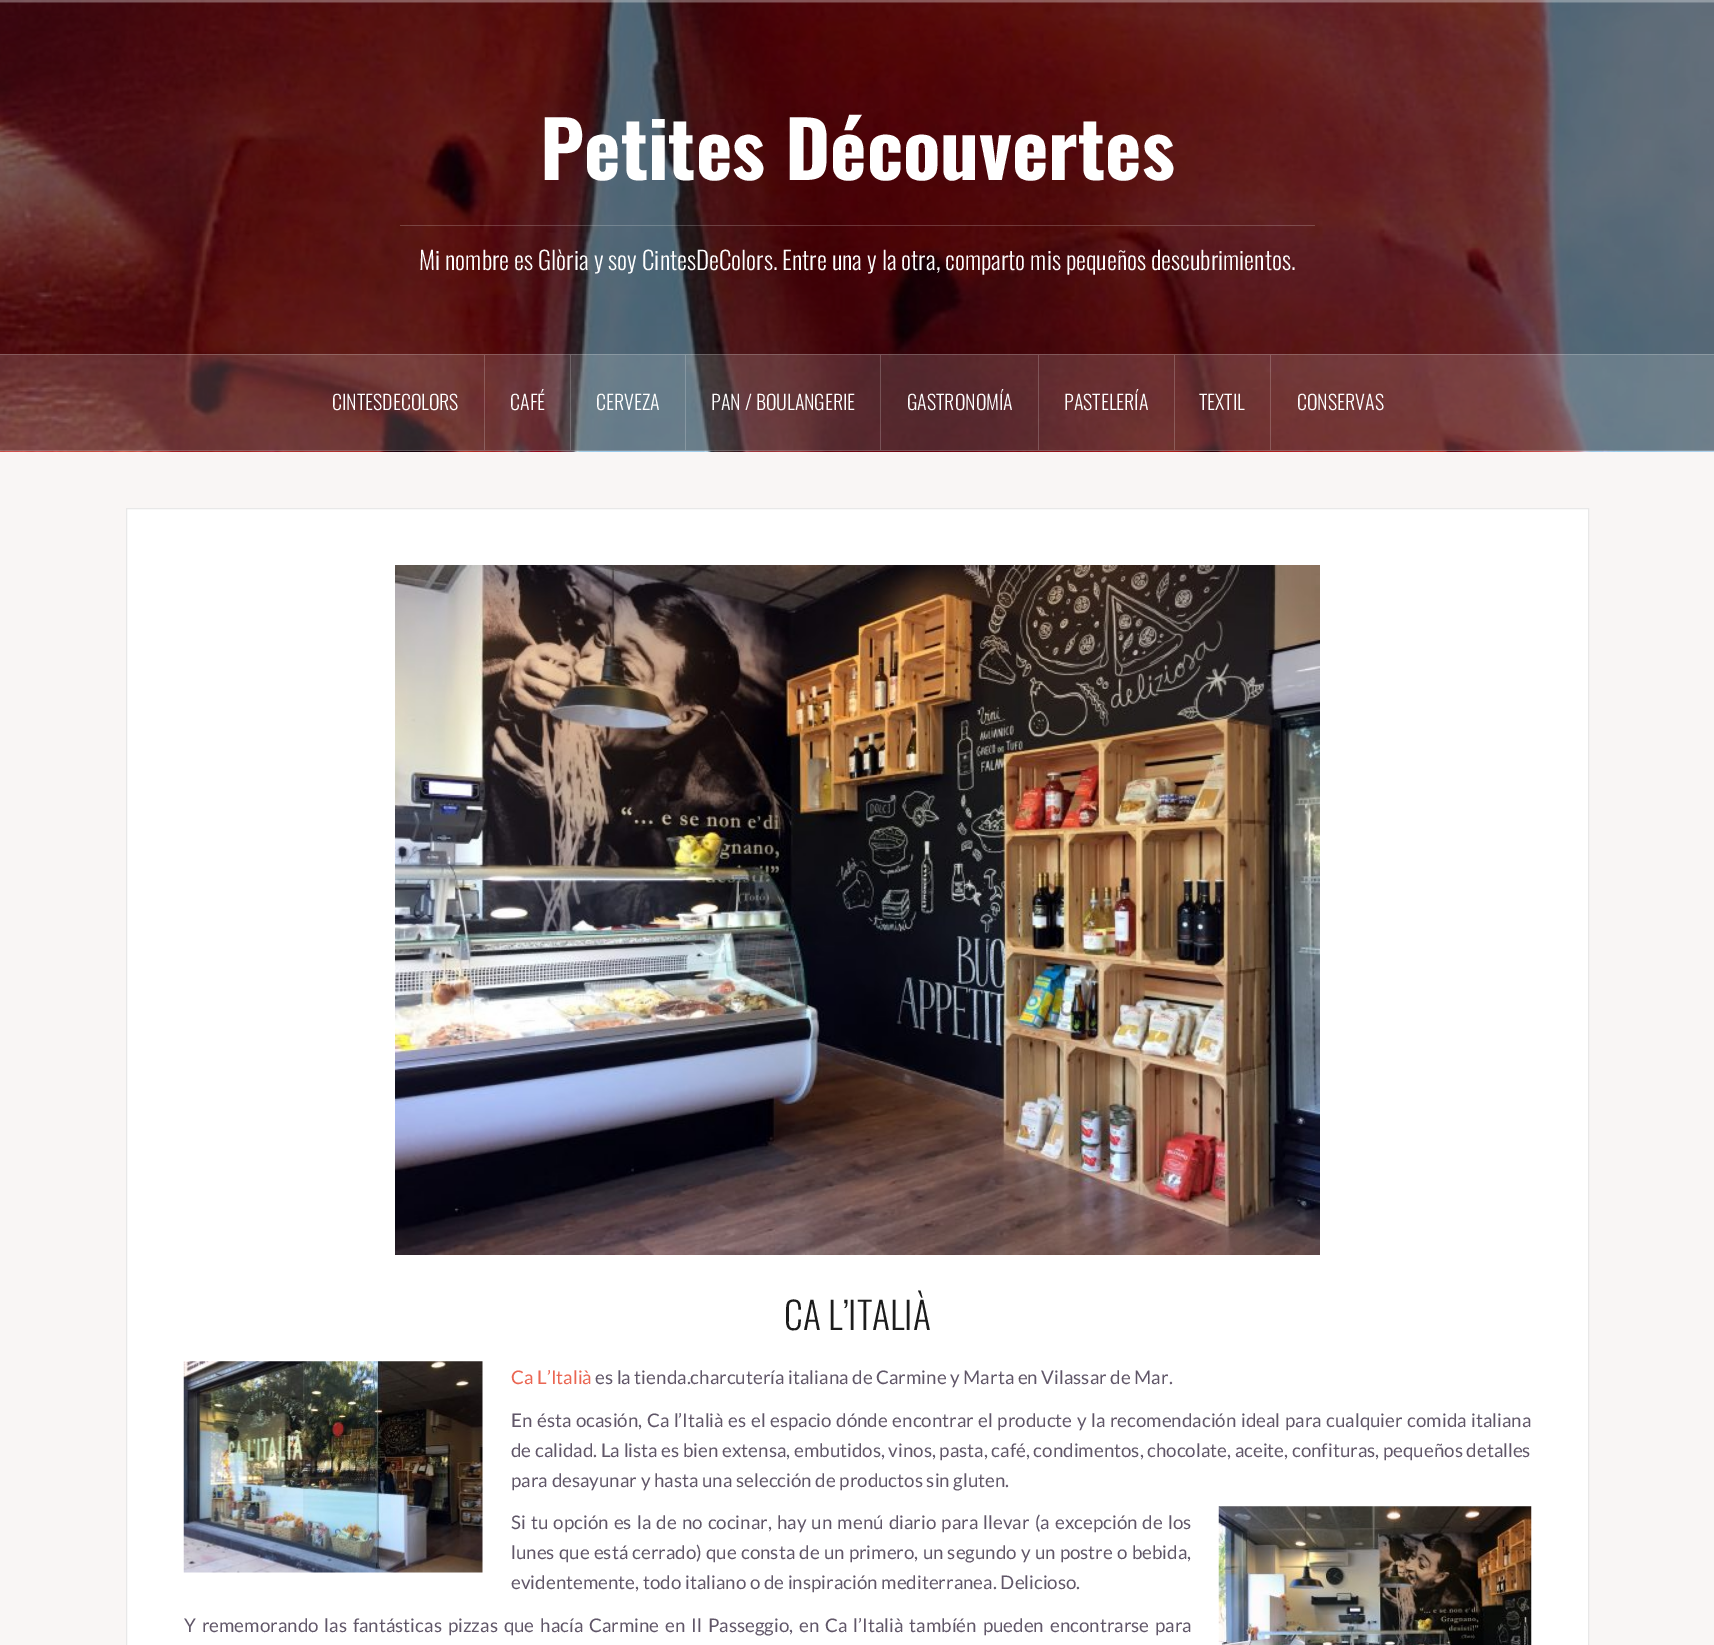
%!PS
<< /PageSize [1714 1645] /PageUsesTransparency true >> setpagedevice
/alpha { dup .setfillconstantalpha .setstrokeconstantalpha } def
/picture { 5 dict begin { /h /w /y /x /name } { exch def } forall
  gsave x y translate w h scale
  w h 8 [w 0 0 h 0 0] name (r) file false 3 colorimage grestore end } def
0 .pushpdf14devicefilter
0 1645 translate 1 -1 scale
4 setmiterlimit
0.976 0.965 0.961 setrgbcolor
0 0 1714 1645 rectfill
(img1.rgb) 0 0 1714 452 picture
0.15 alpha
1 setgray
0 0 1714 3 rectfill
0.2 alpha
0 0 1714 1 rectfill
0 1 1714 1 rectfill
/Oswald-Bold [77.5 0 0 -77.5 0 0] selectfont
1 alpha
540 180 moveto (Petites Découvertes) show
0.2 alpha
400 225 915 1 rectfill
/Oswald-Light [25 0 0 -25 0 0] selectfont
1 alpha
419 270 moveto (Mi nombre es Glòria y soy CintesDeColors. Entre una y la otra, comparto mis pequeños descubrimientos.) show
0.15 alpha
0 354 1714 97 rectfill
0.2 alpha
0 354 1714 1 rectfill
0 450 1714 1 rectfill
484 355 1 95 rectfill
/Oswald-Light [20 0 0 -20 0 0] selectfont
1 alpha
332 410 moveto (CINTESDECOLORS) show
0.2 alpha
570 355 1 95 rectfill
1 alpha
510 410 moveto (CAFÉ) show
0.2 alpha
685 355 1 95 rectfill
1 alpha
596 410 moveto (CERVEZA) show
0.2 alpha
880 355 1 95 rectfill
1 alpha
711 410 moveto (PAN / BOULANGERIE) show
0.2 alpha
1038 355 1 95 rectfill
1 alpha
907 410 moveto (GASTRONOMÍA) show
0.2 alpha
1174 355 1 95 rectfill
1 alpha
1064 410 moveto (PASTELERÍA) show
0.2 alpha
1270 355 1 95 rectfill
1 alpha
1199 410 moveto (TEXTIL) show
1297 410 moveto (CONSERVAS) show
newpath 126.5 508.5 moveto 1588.5 508.5 lineto 1588.5 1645.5 lineto 126.5 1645.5 lineto closepath gsave fill grestore
0.91 setgray
stroke
(img2.rgb) 395 565 925 690 picture
/Oswald-Light [37.5 0 0 -37.5 0 0] selectfont
0.11 setgray
784 1330 moveto (CA L’ITALIÀ) show
(img3.rgb) 183 1361 300 212 picture
/Lato-Regular [18.75 0 0 -18.75 0 0] selectfont
0.918 0.4 0.322 setrgbcolor
511 1384 moveto (Ca L’Italià) show
0.376 0.337 0.408 setrgbcolor
595 1384 moveto (es la tienda.charcutería italiana de Carmine y Marta en Vilassar de Mar.) show
511 1427 moveto 0.9 0 32 (En ésta ocasión, Ca l’Italià es el espacio dónde encontrar el producte y la recomendación ideal para cualquier comida italiana) widthshow
511 1457 moveto (de calidad. La lista es bien extensa, embutidos, vinos, pasta, café, condimentos, chocolate, aceite, confituras, pequeños detalles) show
511 1487 moveto (para desayunar y hasta una selección de productos sin gluten.) show
511 1529 moveto 1.5 0 32 (Si tu opción es la de no cocinar, hay un menú diario para llevar \(a excepción de los) widthshow
(img4.rgb) 1218 1506 314 139 picture
511 1559 moveto 0.5 0 32 (lunes que está cerrado\) que consta de un primero, un segundo y un postre o bebida,) widthshow
511 1589 moveto (evidentemente, todo italiano o de inspiración mediterranea. Delicioso.) show
184 1632 moveto 2.25 0 32 (Y rememorando las fantásticas pizzas que hacía Carmine en Il Passeggio, en Ca l’Italià tambíén pueden encontrarse para) widthshow
.poppdf14devicefilter showpage
